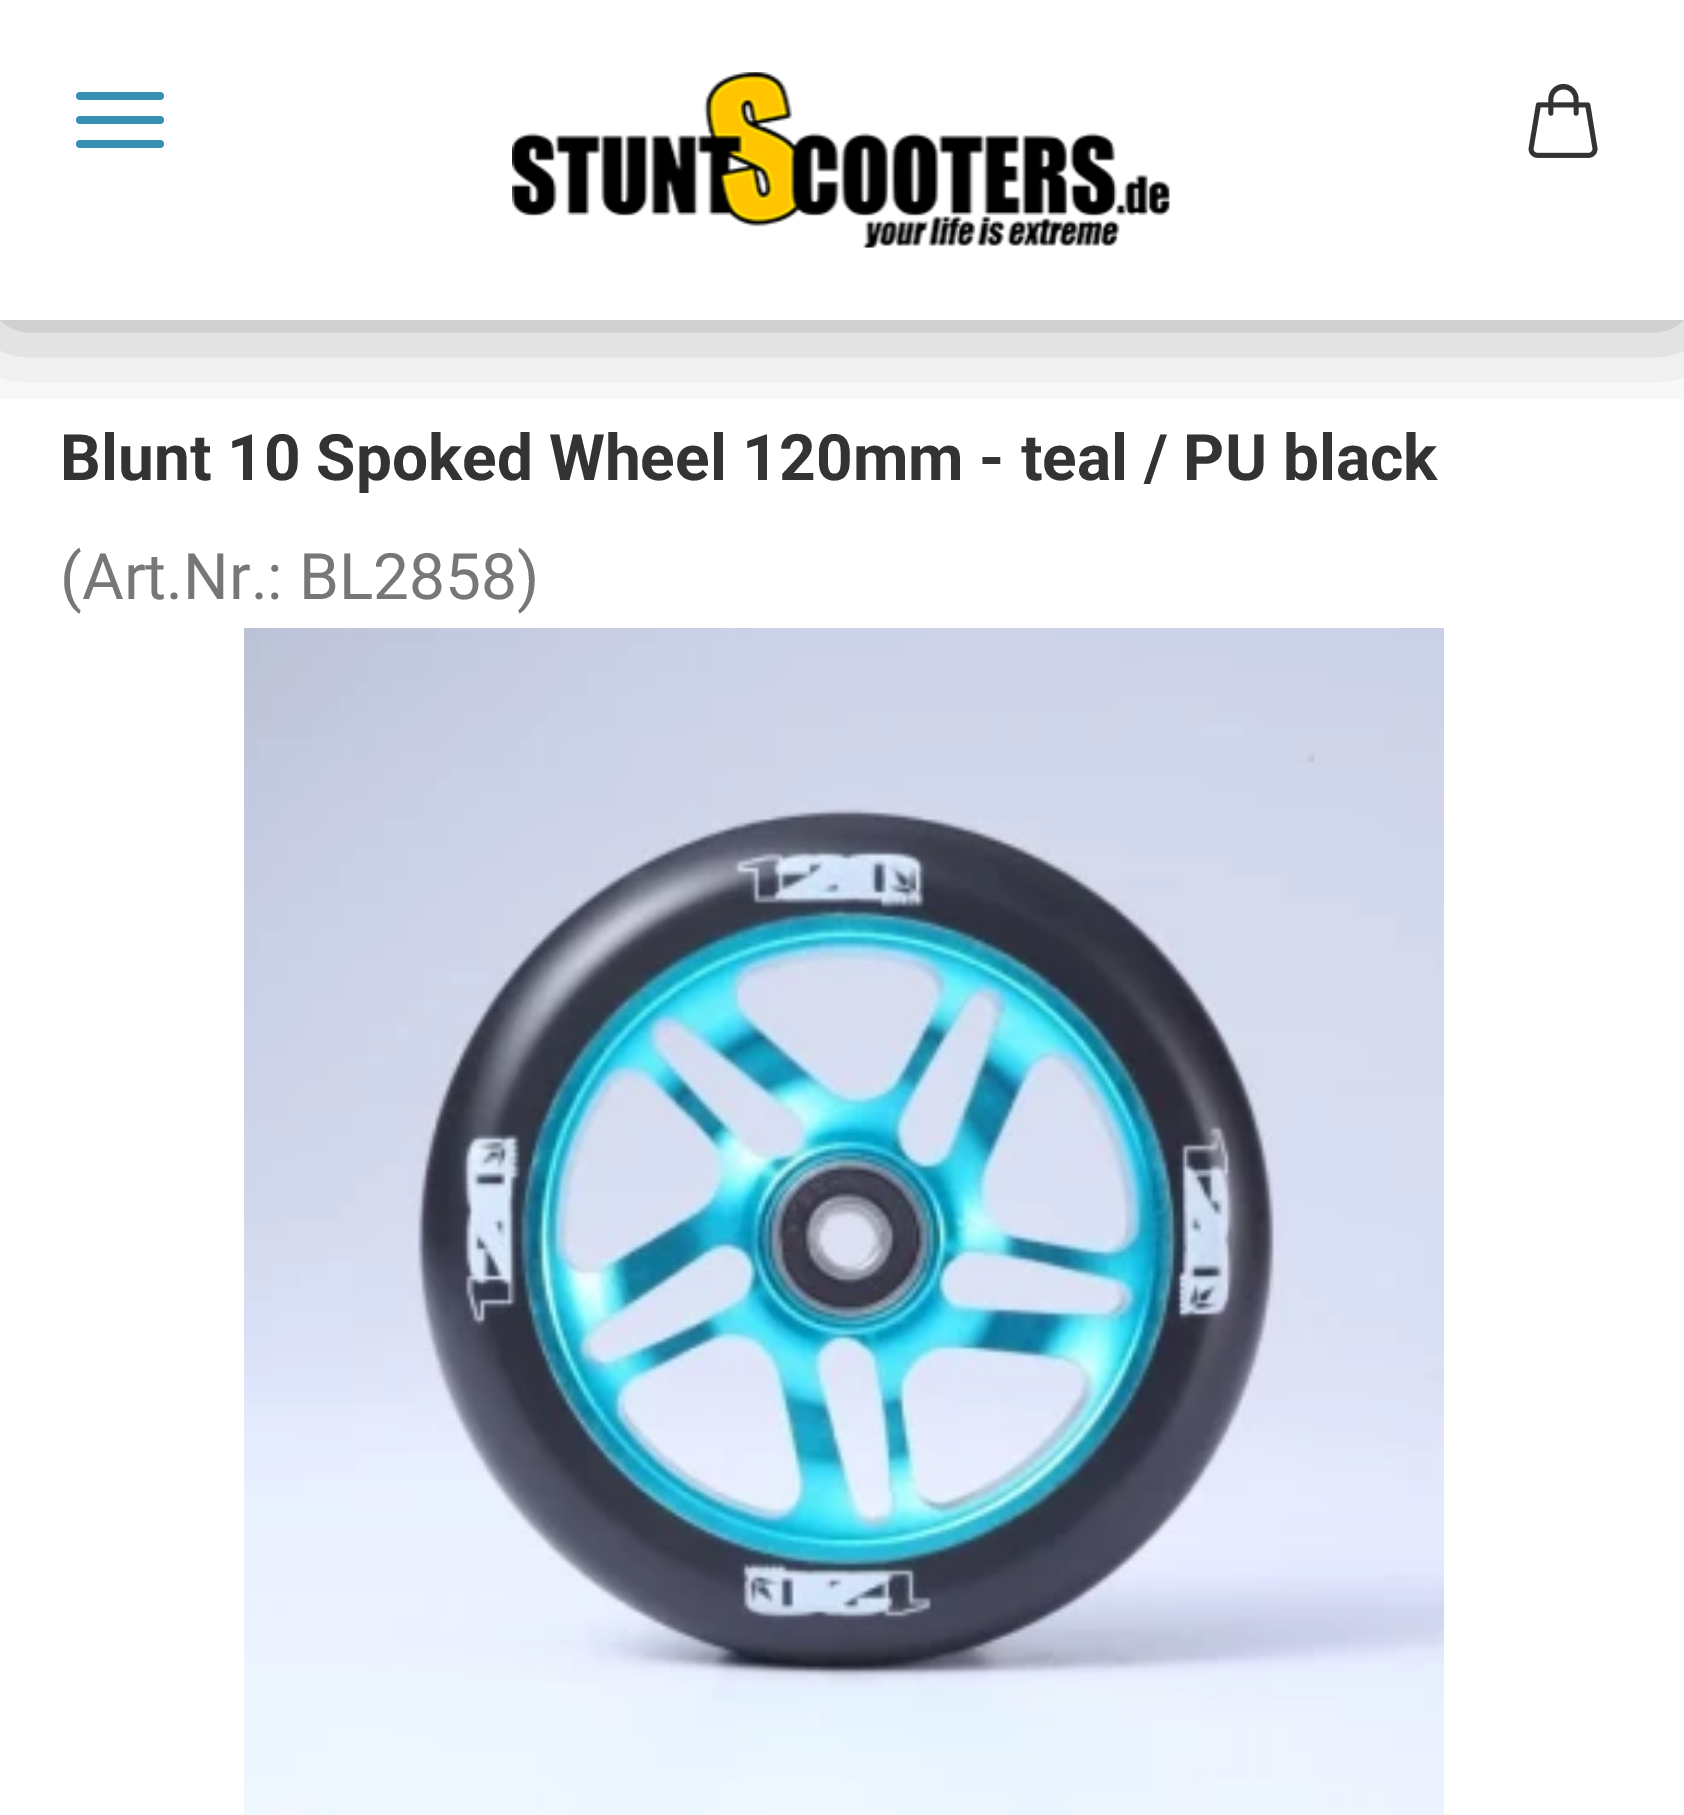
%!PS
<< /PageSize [1684 1815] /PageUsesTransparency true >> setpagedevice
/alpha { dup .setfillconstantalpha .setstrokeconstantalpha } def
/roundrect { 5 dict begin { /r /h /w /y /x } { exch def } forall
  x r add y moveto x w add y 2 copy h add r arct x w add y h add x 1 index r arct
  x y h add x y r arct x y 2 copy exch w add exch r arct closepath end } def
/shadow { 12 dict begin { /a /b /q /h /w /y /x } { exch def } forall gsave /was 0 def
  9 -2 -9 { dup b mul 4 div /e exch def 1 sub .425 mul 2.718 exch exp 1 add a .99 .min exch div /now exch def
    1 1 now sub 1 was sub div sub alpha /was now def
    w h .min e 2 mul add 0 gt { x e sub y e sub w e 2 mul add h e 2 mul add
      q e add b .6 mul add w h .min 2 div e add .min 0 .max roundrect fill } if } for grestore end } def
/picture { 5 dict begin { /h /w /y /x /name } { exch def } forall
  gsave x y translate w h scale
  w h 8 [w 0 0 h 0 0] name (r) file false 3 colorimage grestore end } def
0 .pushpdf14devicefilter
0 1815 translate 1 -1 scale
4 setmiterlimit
1 setgray
0 0 1684 1815 rectfill
gsave
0 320 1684 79 rectclip
0 setgray
0 0 1684 320 0 50 0.35 shadow
grestore
(img1.rgb) 512 72 658 176 picture
(img2.rgb) 1528 83 70 75 picture
0.224 0.561 0.706 setrgbcolor
76 116 88 8 4 roundrect fill
76 92 88 8 4 roundrect fill
76 140 88 8 4 roundrect fill
/Roboto-Bold [64 0 0 -64 0 0] selectfont
0.2 setgray
60 480 moveto (Blunt 10 Spoked Wheel 120mm - teal / PU black) show
/Roboto-Regular [64 0 0 -64 0 0] selectfont
0.467 setgray
60 599 moveto (\(Art.Nr.: BL2858\)) show
(img3.rgb) 244 628 1200 1187 picture
.poppdf14devicefilter showpage
